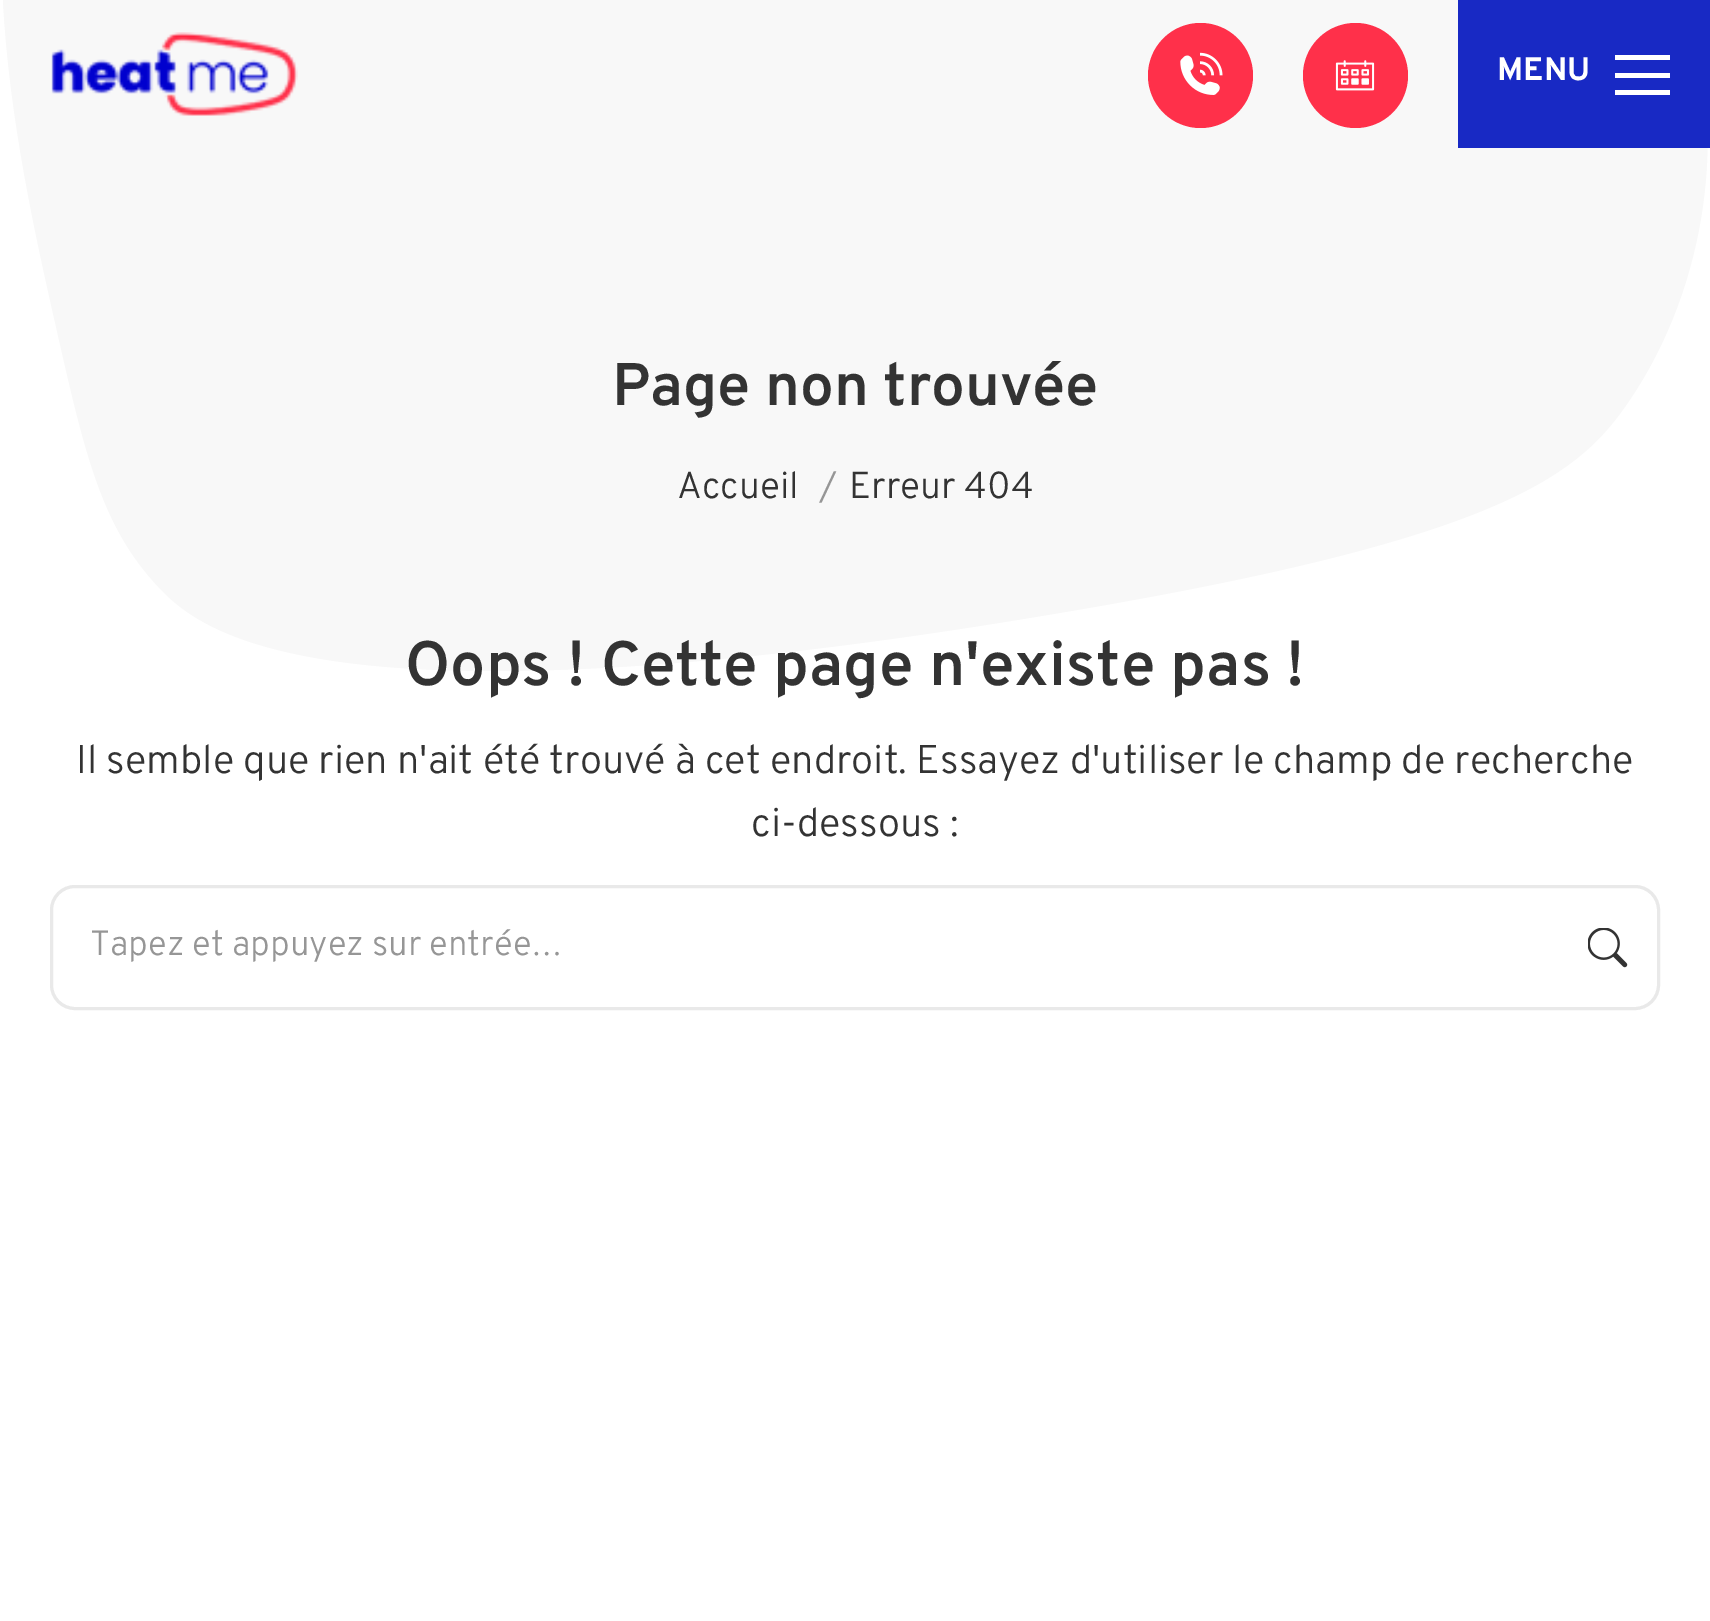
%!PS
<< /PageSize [1710 1621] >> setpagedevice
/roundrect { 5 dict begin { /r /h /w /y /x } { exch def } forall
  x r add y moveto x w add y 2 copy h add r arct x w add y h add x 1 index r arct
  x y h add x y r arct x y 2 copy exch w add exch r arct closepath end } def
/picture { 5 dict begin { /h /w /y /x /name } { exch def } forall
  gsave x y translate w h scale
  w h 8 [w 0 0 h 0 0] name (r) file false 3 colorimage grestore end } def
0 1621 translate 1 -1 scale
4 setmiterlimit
1 setgray
0 0 1710 1621 rectfill
0.973 setgray
newpath 3 0 moveto 9 118 36 238 55 322 curveto 84 450 100 521 153 581 curveto 179 610 234 671 493 671 curveto 620 671 796 657 1041 616 curveto 1502 540 1578 476 1629 401 curveto 1708 285 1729 126 1685 0 curveto closepath fill
(img1.rgb) 51 32 247 84 picture
1 0.188 0.29 setrgbcolor
newpath 1200.5 75.5 52.5 0 360 arc closepath fill
(img2.rgb) 1180 52 43 43 picture
newpath 1355.5 75.5 52.5 0 360 arc closepath fill
(img3.rgb) 1335 60 40 31 picture
0.094 0.161 0.769 setrgbcolor
1458 0 252 148 rectfill
/Overpass-Bold [32.5 0 0 -32.5 0 0] selectfont
1 setgray
1497 80 moveto (MENU) show
1615 55 55 5 rectfill
1615 73 55 5 rectfill
1615 90 55 5 rectfill
/Overpass-SemiBold [60 0 0 -60 0 0] selectfont
0.2 setgray
612 405 moveto (Page non trouvée) show
/Overpass-Light [37.5 0 0 -37.5 0 0] selectfont
677 498 moveto (Accueil) show
0.588 setgray
819 498 moveto (/) show
0.2 setgray
849 498 moveto (Erreur 404) show
/Overpass-SemiBold [62.5 0 0 -62.5 0 0] selectfont
405 685 moveto (Oops ! Cette page n'existe pas !) show
/Overpass-Light [40 0 0 -40 0 0] selectfont
76 773 moveto (Il semble que rien n'ait été trouvé à cet endroit. Essayez d'utiliser le champ de recherche) show
751 836 moveto (ci-dessous :) show
0.914 setgray
3 setlinewidth
51.5 886.5 1607 122 23.5 roundrect stroke
/Overpass-Light [35 0 0 -35 0 0] selectfont
0.588 setgray
90 955 moveto (Tapez et appuyez sur entrée…) show
(img4.rgb) 1588 928 40 40 picture
showpage
